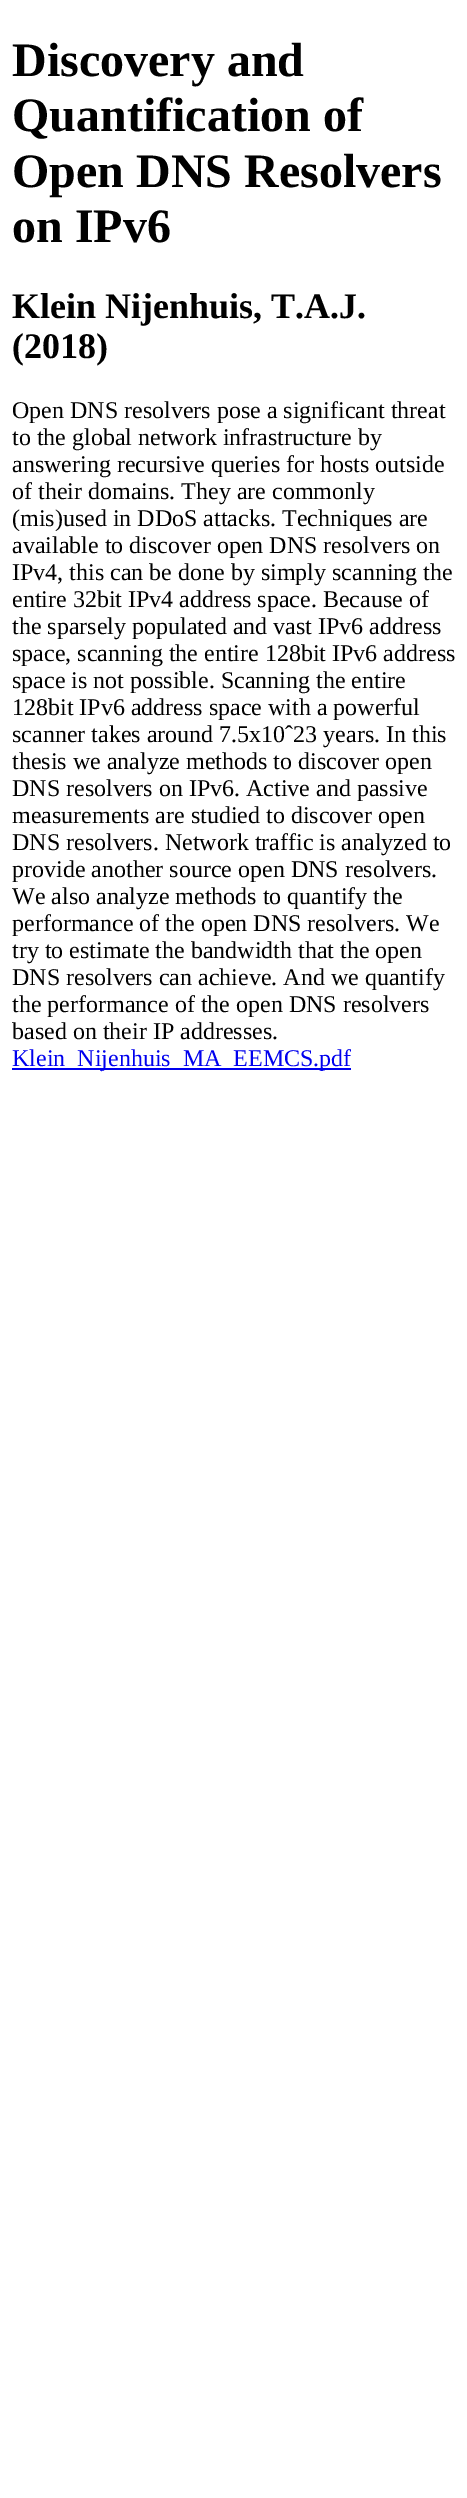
%!PS
<< /PageSize [467 2498] >> setpagedevice
0 2498 translate 1 -1 scale
4 setmiterlimit
1 setgray
0 0 467 2498 rectfill
/LiberationSerif-Bold [48 0 0 -48 0 0] selectfont
0 setgray
12 76 moveto (Discovery and) show
12 131 moveto (Quantification of) show
12 187 moveto (Open DNS Resolvers) show
12 242 moveto (on IPv6) show
/LiberationSerif-Bold [36 0 0 -36 0 0] selectfont
12 318 moveto (Klein Nijenhuis, T.A.J.) show
12 358 moveto (\(2018\)) show
/LiberationSerif-Regular [24 0 0 -24 0 0] selectfont
12 418 moveto (Open DNS resolvers pose a significant threat) show
12 445 moveto (to the global network infrastructure by) show
12 472 moveto (answering recursive queries for hosts outside) show
12 499 moveto (of their domains. They are commonly) show
12 526 moveto (\(mis\)used in DDoS attacks. Techniques are) show
12 553 moveto (available to discover open DNS resolvers on) show
12 580 moveto (IPv4, this can be done by simply scanning the) show
12 607 moveto (entire 32bit IPv4 address space. Because of) show
12 634 moveto (the sparsely populated and vast IPv6 address) show
12 661 moveto (space, scanning the entire 128bit IPv6 address) show
12 688 moveto (space is not possible. Scanning the entire) show
12 715 moveto (128bit IPv6 address space with a powerful) show
12 742 moveto (scanner takes around 7.5x10ˆ23 years. In this) show
12 769 moveto (thesis we analyze methods to discover open) show
12 796 moveto (DNS resolvers on IPv6. Active and passive) show
12 823 moveto (measurements are studied to discover open) show
12 850 moveto (DNS resolvers. Network traffic is analyzed to) show
12 877 moveto (provide another source open DNS resolvers.) show
12 904 moveto (We also analyze methods to quantify the) show
12 931 moveto (performance of the open DNS resolvers. We) show
12 958 moveto (try to estimate the bandwidth that the open) show
12 985 moveto (DNS resolvers can achieve. And we quantify) show
12 1012 moveto (the performance of the open DNS resolvers) show
12 1039 moveto (based on their IP addresses.) show
0 0 0.933 setrgbcolor
12 1068 339 2 rectfill
12 1066 moveto (Klein_Nijenhuis_MA_EEMCS.pdf) show
showpage
